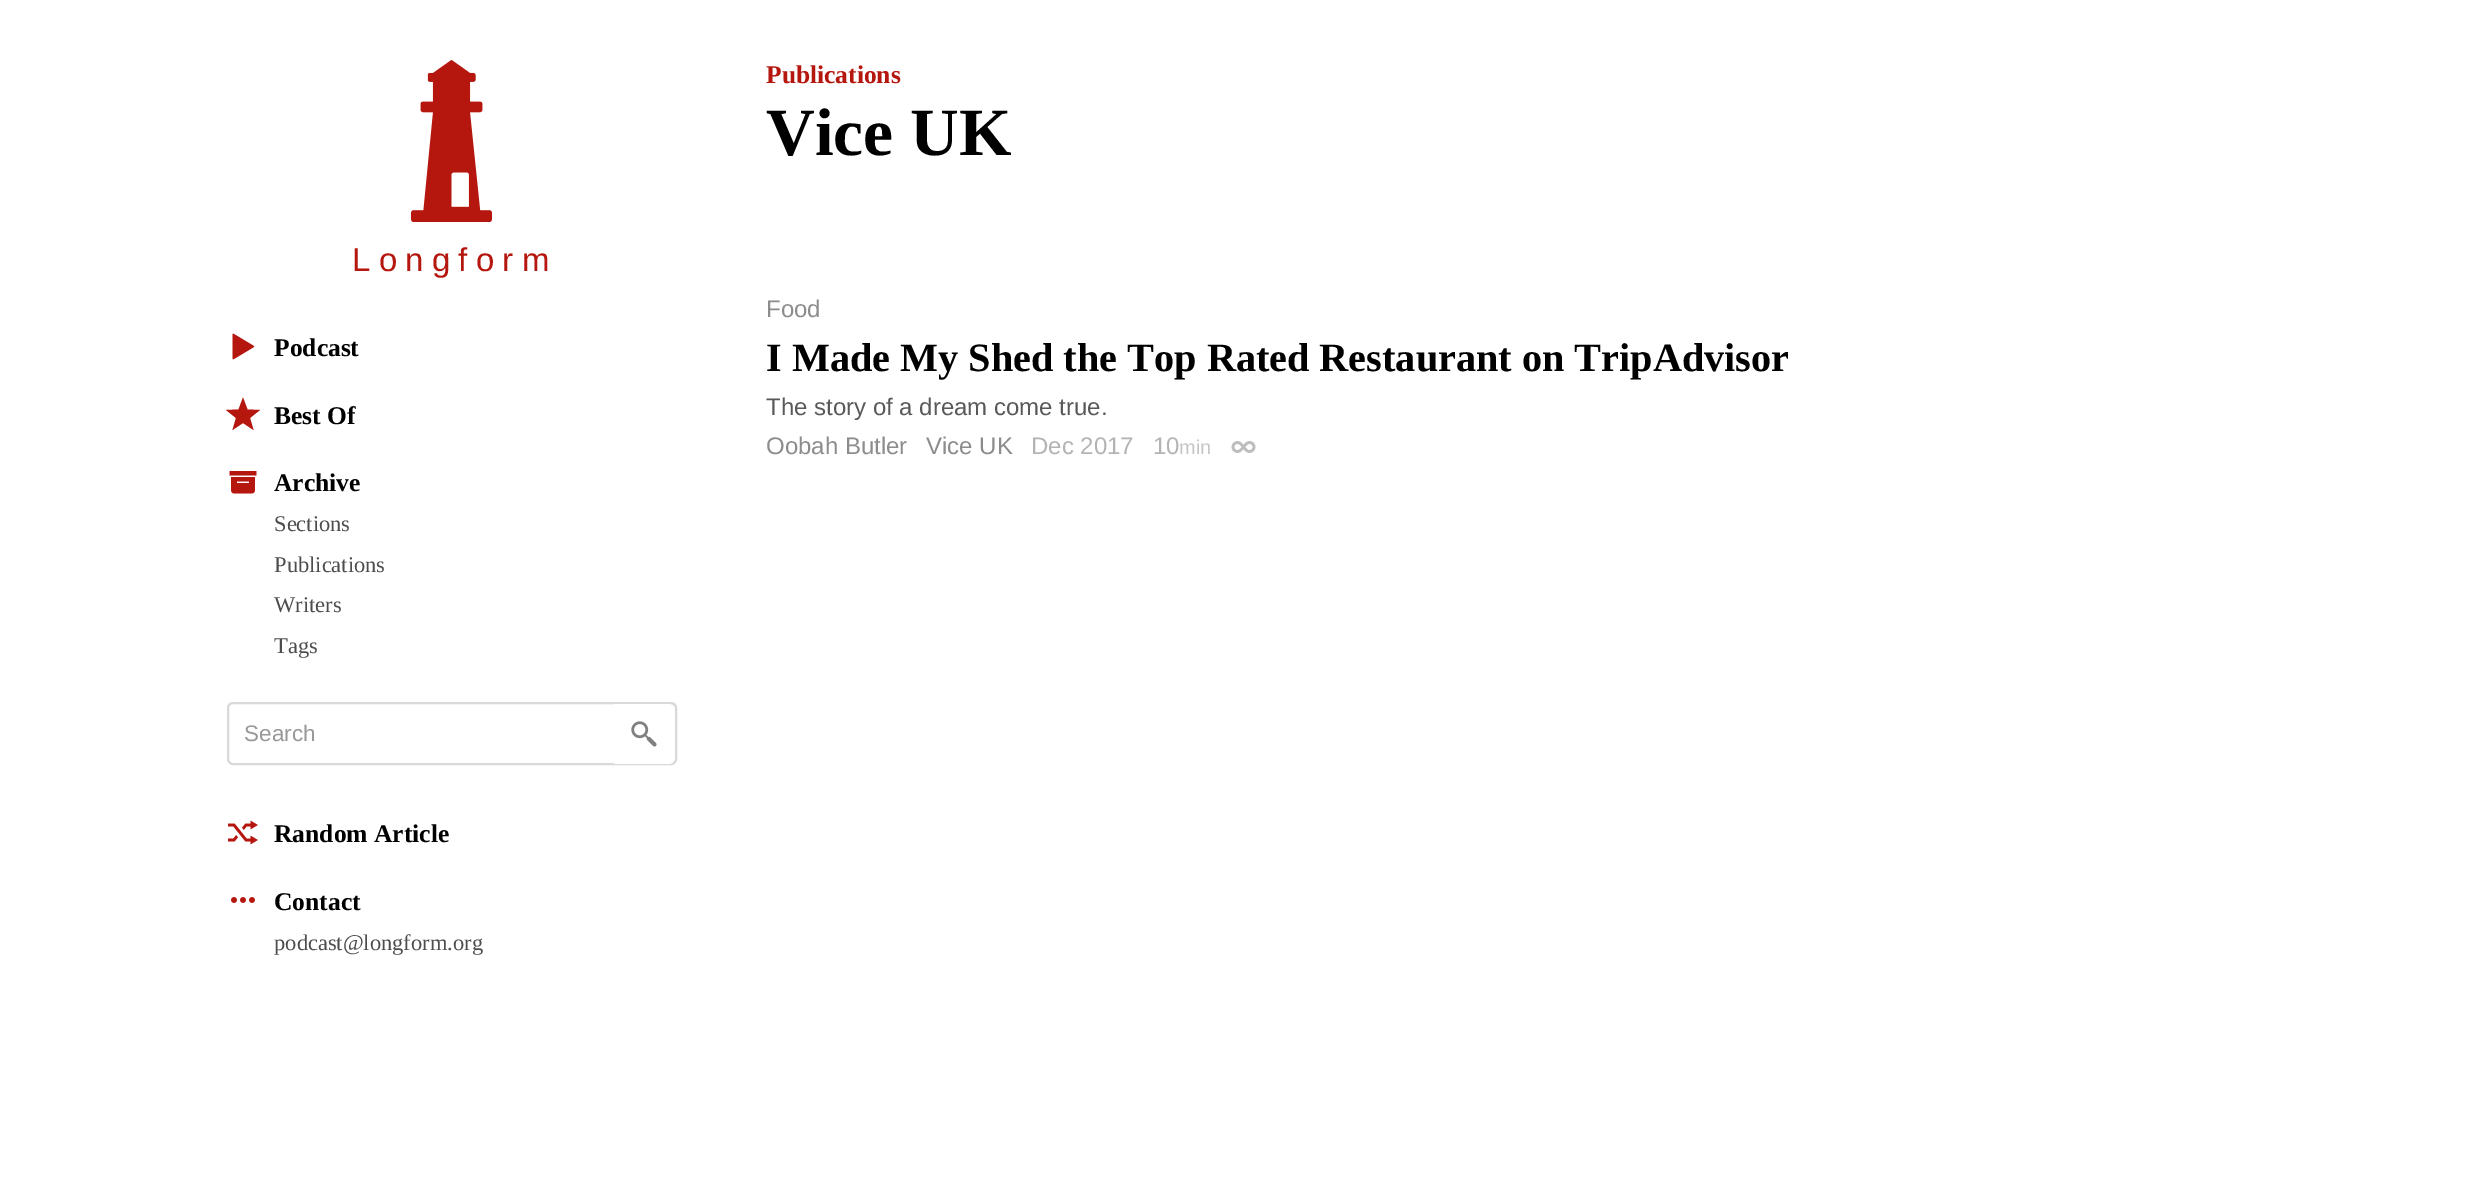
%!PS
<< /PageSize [2491 1193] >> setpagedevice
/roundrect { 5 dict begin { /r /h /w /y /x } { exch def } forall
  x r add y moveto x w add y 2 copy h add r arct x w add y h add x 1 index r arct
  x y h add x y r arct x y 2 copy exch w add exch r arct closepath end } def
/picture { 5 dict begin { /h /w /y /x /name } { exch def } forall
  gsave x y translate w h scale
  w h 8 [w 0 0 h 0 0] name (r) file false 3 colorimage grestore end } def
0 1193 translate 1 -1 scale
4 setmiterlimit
1 setgray
0 0 2491 1193 rectfill
(img1.rgb) 411 60 81 162 picture
/LiberationSans-Regular [33 0 0 -33 0 0] selectfont
0.71 0.09 0.059 setrgbcolor
352 271 moveto 8.25 0 (Longfor) ashow
522 271 moveto (m) show
(img2.rgb) 232 333 23 27 picture
/LiberationSerif-Bold [25.5 0 0 -25.5 0 0] selectfont
0 setgray
274 356 moveto (Podcast) show
0.71 0.09 0.059 setrgbcolor
newpath 243 423 moveto 232.5 430 lineto 236 418 lineto 226 410 lineto 238.5 409.5 lineto 243 397.5 lineto 247.5 409.5 lineto 260 410 lineto 250 418 lineto 253.5 430 lineto closepath eofill
0 setgray
274 424 moveto (Best Of) show
(img3.rgb) 229 471 28 23 picture
274 491 moveto (Archive) show
/LiberationSerif-Regular [22.5 0 0 -22.5 0 0] selectfont
0.302 setgray
274 531 moveto (Sections) show
274 572 moveto (Publications) show
274 612 moveto (Writers) show
274 653 moveto (Tags) show
0.851 setgray
2 setlinewidth
228 703 448 61 5 roundrect stroke
/LiberationSans-Regular [22.5 0 0 -22.5 0 0] selectfont
0.6 setgray
244 741 moveto (Search) show
1 setgray
newpath 614 704 moveto 670 704 lineto 673 704 675 706 675 709 curveto 675 759 lineto 675 762 673 764 670 764 curveto 614 764 lineto closepath fill
(img4.rgb) 631 721 26 26 picture
0.851 setgray
newpath 614 702 moveto 670 702 lineto 674 702 676 705 676 708 curveto 676 759 lineto 676 762 674 765 670 765 curveto 614 765 lineto closepath 614 704 moveto 670 704 lineto 673 704 675 706 675 708 curveto 675 759 lineto 675 761 673 764 670 764 curveto 614 764 lineto closepath eofill
(img5.rgb) 228 820 30 25 picture
/LiberationSerif-Bold [25.5 0 0 -25.5 0 0] selectfont
0 setgray
274 842 moveto (Random Article) show
(img6.rgb) 231 897 24 6 picture
274 910 moveto (Contact) show
/LiberationSerif-Regular [22.5 0 0 -22.5 0 0] selectfont
0.302 setgray
274 950 moveto (podcast@longform.org) show
/LiberationSerif-Bold [25.5 0 0 -25.5 0 0] selectfont
0.71 0.09 0.059 setrgbcolor
766 83 moveto (Publications) show
/LiberationSerif-Bold [67.5 0 0 -67.5 0 0] selectfont
0 setgray
766 155 moveto (Vice UK) show
/LiberationSans-Regular [24 0 0 -24 0 0] selectfont
0.549 setgray
766 317 moveto (Food) show
/LiberationSerif-Bold [40.25 0 0 -40.25 0 0] selectfont
0 setgray
766 371 moveto (I Made My Shed the Top Rated Restaurant on TripAdvisor) show
/LiberationSans-Regular [24 0 0 -24 0 0] selectfont
0.349 setgray
766 415 moveto (The story of a dream come true.) show
0.549 setgray
766 454 moveto (Oobah Butler) show
926 454 moveto (Vice UK) show
0.702 setgray
1031 454 moveto (Dec 2017) show
1153 454 moveto (10) show
/LiberationSans-Regular [20 0 0 -20 0 0] selectfont
0.776 setgray
1179 454 moveto (min) show
(img7.rgb) 1231 441 25 12 picture
showpage
